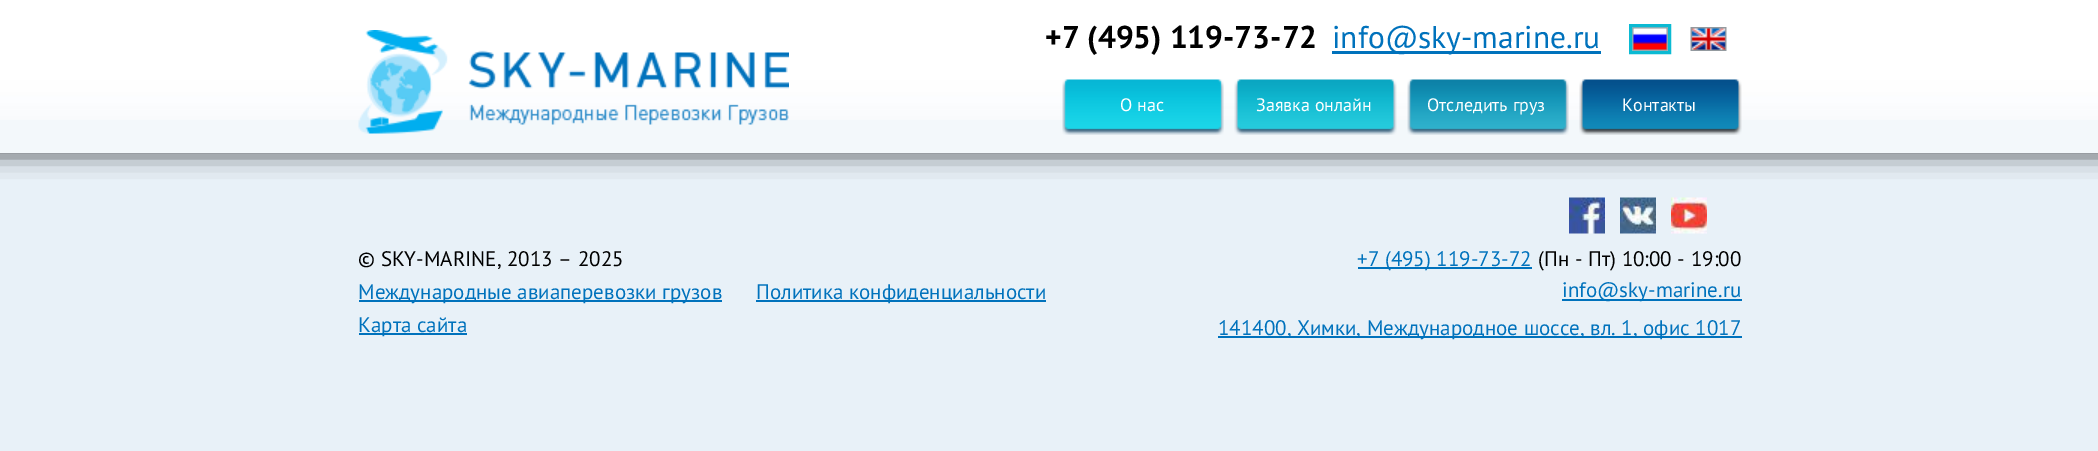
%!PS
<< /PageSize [2098 451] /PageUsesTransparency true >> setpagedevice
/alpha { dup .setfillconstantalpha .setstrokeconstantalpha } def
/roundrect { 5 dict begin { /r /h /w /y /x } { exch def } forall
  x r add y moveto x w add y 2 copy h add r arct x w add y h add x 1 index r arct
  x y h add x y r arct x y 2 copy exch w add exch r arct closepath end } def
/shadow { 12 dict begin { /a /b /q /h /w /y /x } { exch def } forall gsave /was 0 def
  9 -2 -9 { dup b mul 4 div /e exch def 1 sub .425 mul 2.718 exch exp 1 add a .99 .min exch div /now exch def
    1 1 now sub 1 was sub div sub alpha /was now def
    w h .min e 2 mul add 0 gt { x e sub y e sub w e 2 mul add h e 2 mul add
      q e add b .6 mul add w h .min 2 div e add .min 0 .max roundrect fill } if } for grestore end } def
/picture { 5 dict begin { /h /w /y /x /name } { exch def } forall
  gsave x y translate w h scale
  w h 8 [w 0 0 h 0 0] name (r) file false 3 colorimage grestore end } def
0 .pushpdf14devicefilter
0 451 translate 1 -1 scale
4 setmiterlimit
0.91 0.945 0.973 setrgbcolor
0 0 2098 451 rectfill
0 setgray
-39 -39 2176 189 0 13 1 shadow
0.953 0.973 0.984 setrgbcolor
0 120 2098 33 rectfill
(img1.rgb) 0 0 2098 120 picture
(img2.rgb) 358 30 431 104 picture
/PTSans-Bold [31.5 0 0 -31.5 0 0] selectfont
0 setgray
1045 48 moveto (+7 \(495\) 119-73-72) show
0 0.447 0.737 setrgbcolor
1332 51 269 3 rectfill
/PTSans-Regular [31.5 0 0 -31.5 0 0] selectfont
1332 48 moveto (info@sky-marine.ru) show
(img3.rgb) 1632 27 36 24 picture
0.043 0.729 0.827 setrgbcolor
3 setlinewidth
1630.5 25.5 39 27 rectstroke
(img4.rgb) 1690 27 37 24 picture
(img5.rgb) 1062 79 162 56 picture
/PTSans-Regular [18 0 0 -18 0 0] selectfont
1 setgray
1120 111 moveto (О нас) show
(img6.rgb) 1234 79 163 56 picture
1256 111 moveto (Заявка онлайн) show
(img7.rgb) 1407 79 162 56 picture
1427 111 moveto (Отследить груз) show
(img8.rgb) 1579 79 163 56 picture
1622 111 moveto (Контакты) show
(img9.rgb) 1569 197 36 37 picture
(img10.rgb) 1620 197 36 37 picture
(img11.rgb) 1671 197 36 37 picture
/PTSans-Regular [21 0 0 -21 0 0] selectfont
0 setgray
358 266 moveto (© SKY-MARINE, 2013 – 2025) show
0 0.447 0.737 setrgbcolor
359 300 363 2 rectfill
358 299 moveto (Международные авиаперевозки грузов) show
756 300 290 2 rectfill
756 299 moveto (Политика конфиденциальности) show
359 333 108 2 rectfill
358 332 moveto (Карта сайта) show
1358 267 174 2 rectfill
1357 266 moveto (+7 \(495\) 119-73-72) show
0 setgray
1538 266 moveto (\(Пн - Пт\) 10:00 - 19:00) show
0 0.447 0.737 setrgbcolor
1562 299 180 2 rectfill
1562 297 moveto (info@sky-marine.ru) show
1218 336 524 2 rectfill
1218 335 moveto (141400, Химки, Международное шоссе, вл. 1, офис 1017) show
.poppdf14devicefilter showpage
